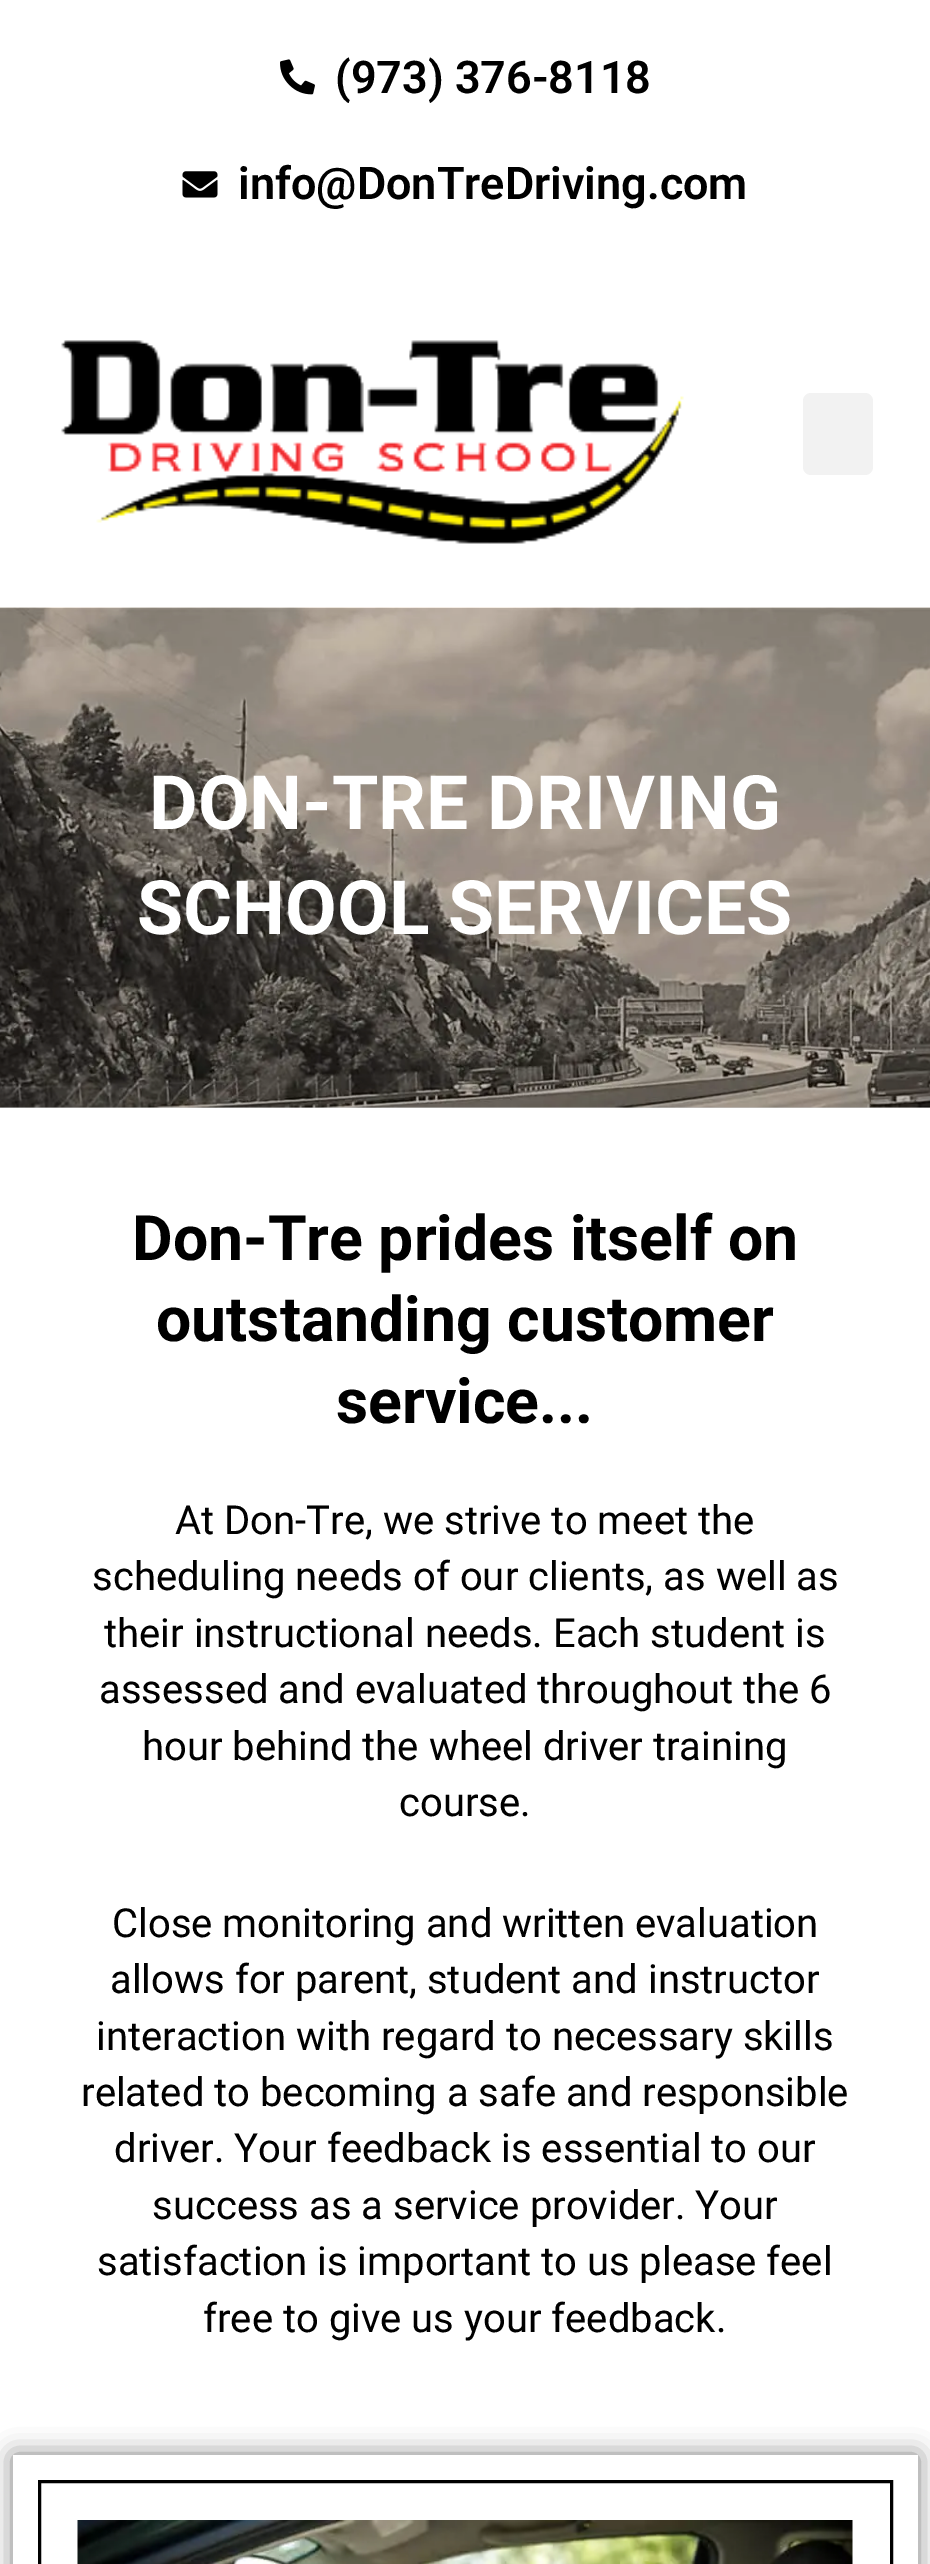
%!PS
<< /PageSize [930 2564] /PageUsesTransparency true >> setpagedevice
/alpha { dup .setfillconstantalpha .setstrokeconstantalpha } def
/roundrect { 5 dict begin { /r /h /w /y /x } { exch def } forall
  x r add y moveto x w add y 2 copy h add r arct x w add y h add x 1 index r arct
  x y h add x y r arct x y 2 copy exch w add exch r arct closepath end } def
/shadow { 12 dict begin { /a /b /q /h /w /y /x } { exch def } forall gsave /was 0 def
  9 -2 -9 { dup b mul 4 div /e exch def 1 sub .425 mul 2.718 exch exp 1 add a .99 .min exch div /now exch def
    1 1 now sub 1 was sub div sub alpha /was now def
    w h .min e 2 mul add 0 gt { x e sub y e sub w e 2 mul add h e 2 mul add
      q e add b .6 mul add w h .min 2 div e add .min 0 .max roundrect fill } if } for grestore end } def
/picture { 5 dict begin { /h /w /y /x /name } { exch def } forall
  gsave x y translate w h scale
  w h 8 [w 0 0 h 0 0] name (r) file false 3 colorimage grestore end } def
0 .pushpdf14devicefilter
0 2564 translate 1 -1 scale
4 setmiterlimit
1 setgray
0 0 930 2564 rectfill
0.8 setgray
0 1107 930 1 rectfill
(img1.rgb) 280 59 35 36 picture
/Roboto-SemiBold [45 0 0 -45 0 0] selectfont
0 setgray
335 93 moveto (\(973\) 376-8118) show
(img2.rgb) 182 171 36 27 picture
238 199 moveto (info@DonTreDriving.com) show
(img3.rgb) 61 340 623 204 picture
0.949 setgray
803 393 70 82 8 roundrect fill
(img4.rgb) 0 607 930 501 picture
/Roboto-Bold [75 0 0 -75 0 0] selectfont
1 setgray
149 829 moveto (DON-TRE DRIVING) show
137 934 moveto (SCHOOL SERVICES) show
/Roboto-Bold [62.5 0 0 -62.5 0 0] selectfont
0 setgray
132 1260 moveto (Don-Tre prides itself on) show
156 1341 moveto (outstanding customer) show
336 1423 moveto (service...) show
/Roboto-Regular [40 0 0 -40 0 0] selectfont
175 1534 moveto (At Don-Tre, we strive to meet the) show
92 1590 moveto (scheduling needs of our clients, as well as) show
104 1647 moveto (their instructional needs. Each student is) show
99 1703 moveto (assessed and evaluated throughout the 6) show
142 1760 moveto (hour behind the wheel driver training) show
399 1816 moveto (course.) show
112 1937 moveto (Close monitoring and written evaluation) show
110 1993 moveto (allows for parent, student and instructor) show
96 2050 moveto (interaction with regard to necessary skills) show
81 2106 moveto (related to becoming a safe and responsible) show
114 2162 moveto (driver. Your feedback is essential to our) show
152 2219 moveto (success as a service provider. Your) show
97 2275 moveto (satisfaction is important to us please feel) show
203 2332 moveto (free to give us your feedback.) show
gsave
newpath 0 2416 moveto 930 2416 lineto 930 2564 lineto 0 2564 lineto closepath 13 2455 moveto 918 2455 lineto 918 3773 lineto 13 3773 lineto closepath eoclip newpath
13 2455 905 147 0 12.5 0.5 shadow
grestore
3 setlinewidth
39.5 2481.5 852 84 rectstroke
(img5.rgb) 77 2520 776 44 picture
.poppdf14devicefilter showpage
